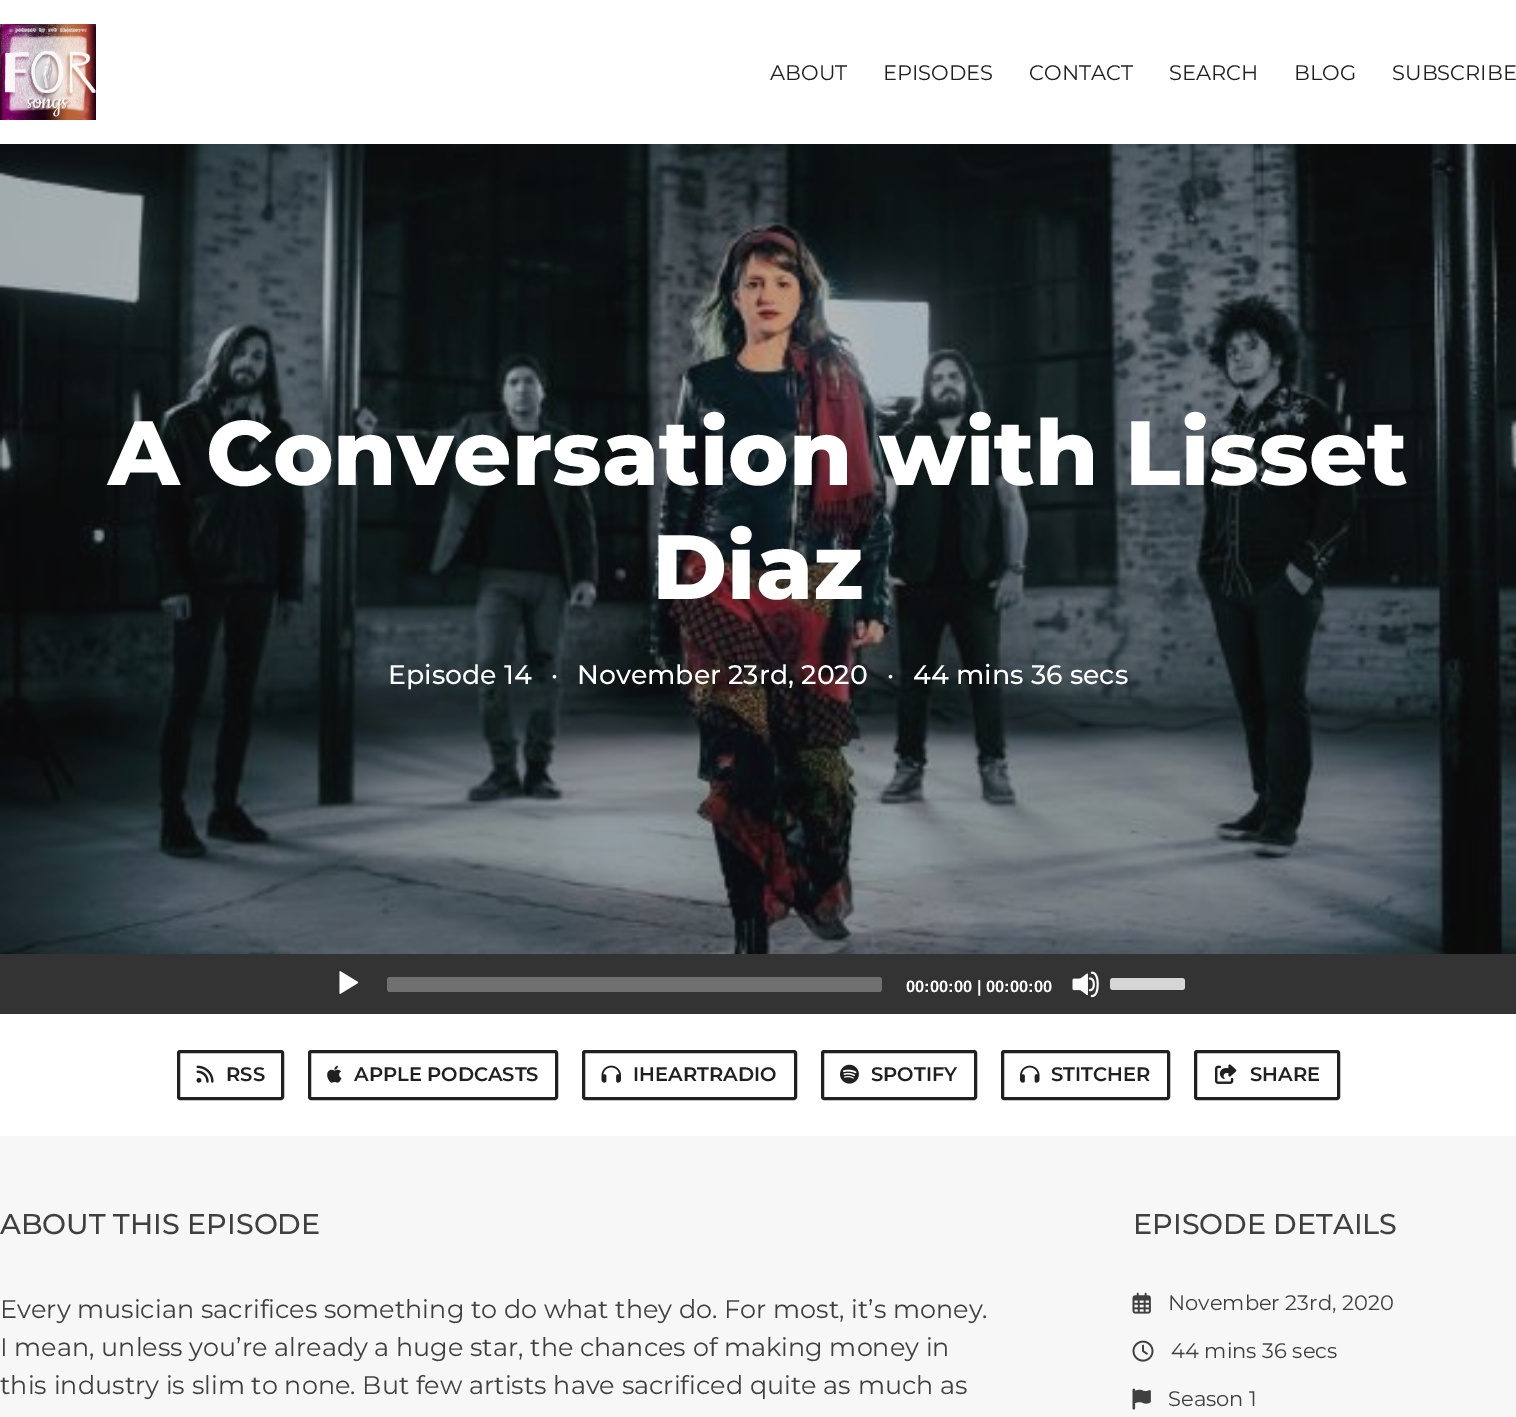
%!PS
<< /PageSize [1516 1417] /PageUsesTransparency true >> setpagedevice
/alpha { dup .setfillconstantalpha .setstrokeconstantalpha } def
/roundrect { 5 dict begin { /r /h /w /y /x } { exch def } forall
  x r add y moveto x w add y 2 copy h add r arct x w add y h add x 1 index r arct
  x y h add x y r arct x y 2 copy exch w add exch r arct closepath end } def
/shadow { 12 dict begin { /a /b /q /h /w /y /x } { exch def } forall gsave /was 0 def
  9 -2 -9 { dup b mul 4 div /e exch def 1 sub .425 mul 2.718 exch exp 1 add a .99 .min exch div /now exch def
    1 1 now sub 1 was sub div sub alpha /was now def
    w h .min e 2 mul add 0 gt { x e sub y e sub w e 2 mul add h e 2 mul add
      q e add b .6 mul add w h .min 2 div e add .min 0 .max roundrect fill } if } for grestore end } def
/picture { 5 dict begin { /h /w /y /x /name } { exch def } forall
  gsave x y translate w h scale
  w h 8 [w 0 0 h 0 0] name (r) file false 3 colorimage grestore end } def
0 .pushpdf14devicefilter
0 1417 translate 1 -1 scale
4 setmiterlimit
0.969 setgray
0 0 1516 1417 rectfill
(img2.rgb) 0 144 1516 810 picture
0 setgray
0 0 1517 144 0 12 0.1 shadow
1 setgray
0 0 1516 144 rectfill
(img1.rgb) 0 24 96 96 picture
/Montserrat-Regular [21 0 0 -21 0 0] selectfont
0.125 setgray
770 80 moveto (ABOUT) show
883 80 moveto (EPISODES) show
1029 80 moveto (CONTACT) show
1169 80 moveto (SEARCH) show
1294 80 moveto (BLOG) show
1392 80 moveto (SUBSCRIBE) show
/Montserrat-ExtraBold [91.1 0 0 -91.1 0 0] selectfont
1 setgray
108 485 moveto (A Conversation with Lisset) show
652 599 moveto (Diaz) show
/Montserrat-Medium [26.75 0 0 -26.75 0 0] selectfont
388 684 moveto (Episode 14) show
551 684 moveto (·) show
577 684 moveto (November 23rd, 2020) show
887 684 moveto (·) show
913 684 moveto (44 mins 36 secs) show
0.2 setgray
0 954 1516 60 rectfill
(img3.rgb) 339 971 20 23 picture
0.439 setgray
387 977 495 15 3 roundrect fill
/LiberationSans-Bold [16.5 0 0 -16.5 0 0] selectfont
1 setgray
906 992 moveto (00:00:00 | 00:00:00) show
(img4.rgb) 1072 971 27 27 picture
0.839 setgray
1110 978 75 12 3 roundrect fill
1 setgray
0 1014 1516 122 rectfill
0.125 setgray
3 setlinewidth
178.5 1051.5 104 47 1.5 roundrect stroke
(img5.rgb) 196 1065 18 18 picture
/Montserrat-SemiBold [19.5 0 0 -19.5 0 0] selectfont
226 1081 moveto (RSS) show
309.5 1051.5 247 47 1.5 roundrect stroke
(img6.rgb) 327 1065 15 18 picture
354 1081 moveto (APPLE PODCASTS) show
583.5 1051.5 212 47 1.5 roundrect stroke
(img7.rgb) 601 1065 20 18 picture
633 1081 moveto (IHEARTRADIO) show
822.5 1051.5 153 47 1.5 roundrect stroke
(img8.rgb) 840 1064 19 20 picture
871 1081 moveto (SPOTIFY) show
1002.5 1051.5 166 47 1.5 roundrect stroke
(img9.rgb) 1020 1065 20 18 picture
1051 1081 moveto (STITCHER) show
1195.5 1051.5 143 47 1.5 roundrect stroke
(img10.rgb) 1215 1064 22 20 picture
1250 1081 moveto (SHARE) show
/Montserrat-Medium [28.5 0 0 -28.5 0 0] selectfont
0.251 setgray
0 1234 moveto (ABOUT THIS EPISODE) show
/Montserrat-Regular [25.5 0 0 -25.5 0 0] selectfont
0 1318 moveto (Every musician sacrifices something to do what they do. For most, it’s money.) show
0 1356 moveto (I mean, unless you’re already a huge star, the chances of making money in) show
0 1394 moveto (this industry is slim to none. But few artists have sacrificed quite as much as) show
/Montserrat-Medium [28.5 0 0 -28.5 0 0] selectfont
1133 1234 moveto (EPISODE DETAILS) show
(img11.rgb) 1132 1292 19 22 picture
/Montserrat-Regular [21 0 0 -21 0 0] selectfont
1168 1310 moveto (November 23rd, 2020) show
(img12.rgb) 1132 1340 22 22 picture
1171 1358 moveto (44 mins 36 secs) show
(img13.rgb) 1132 1388 19 22 picture
1168 1406 moveto (Season 1) show
.poppdf14devicefilter showpage
